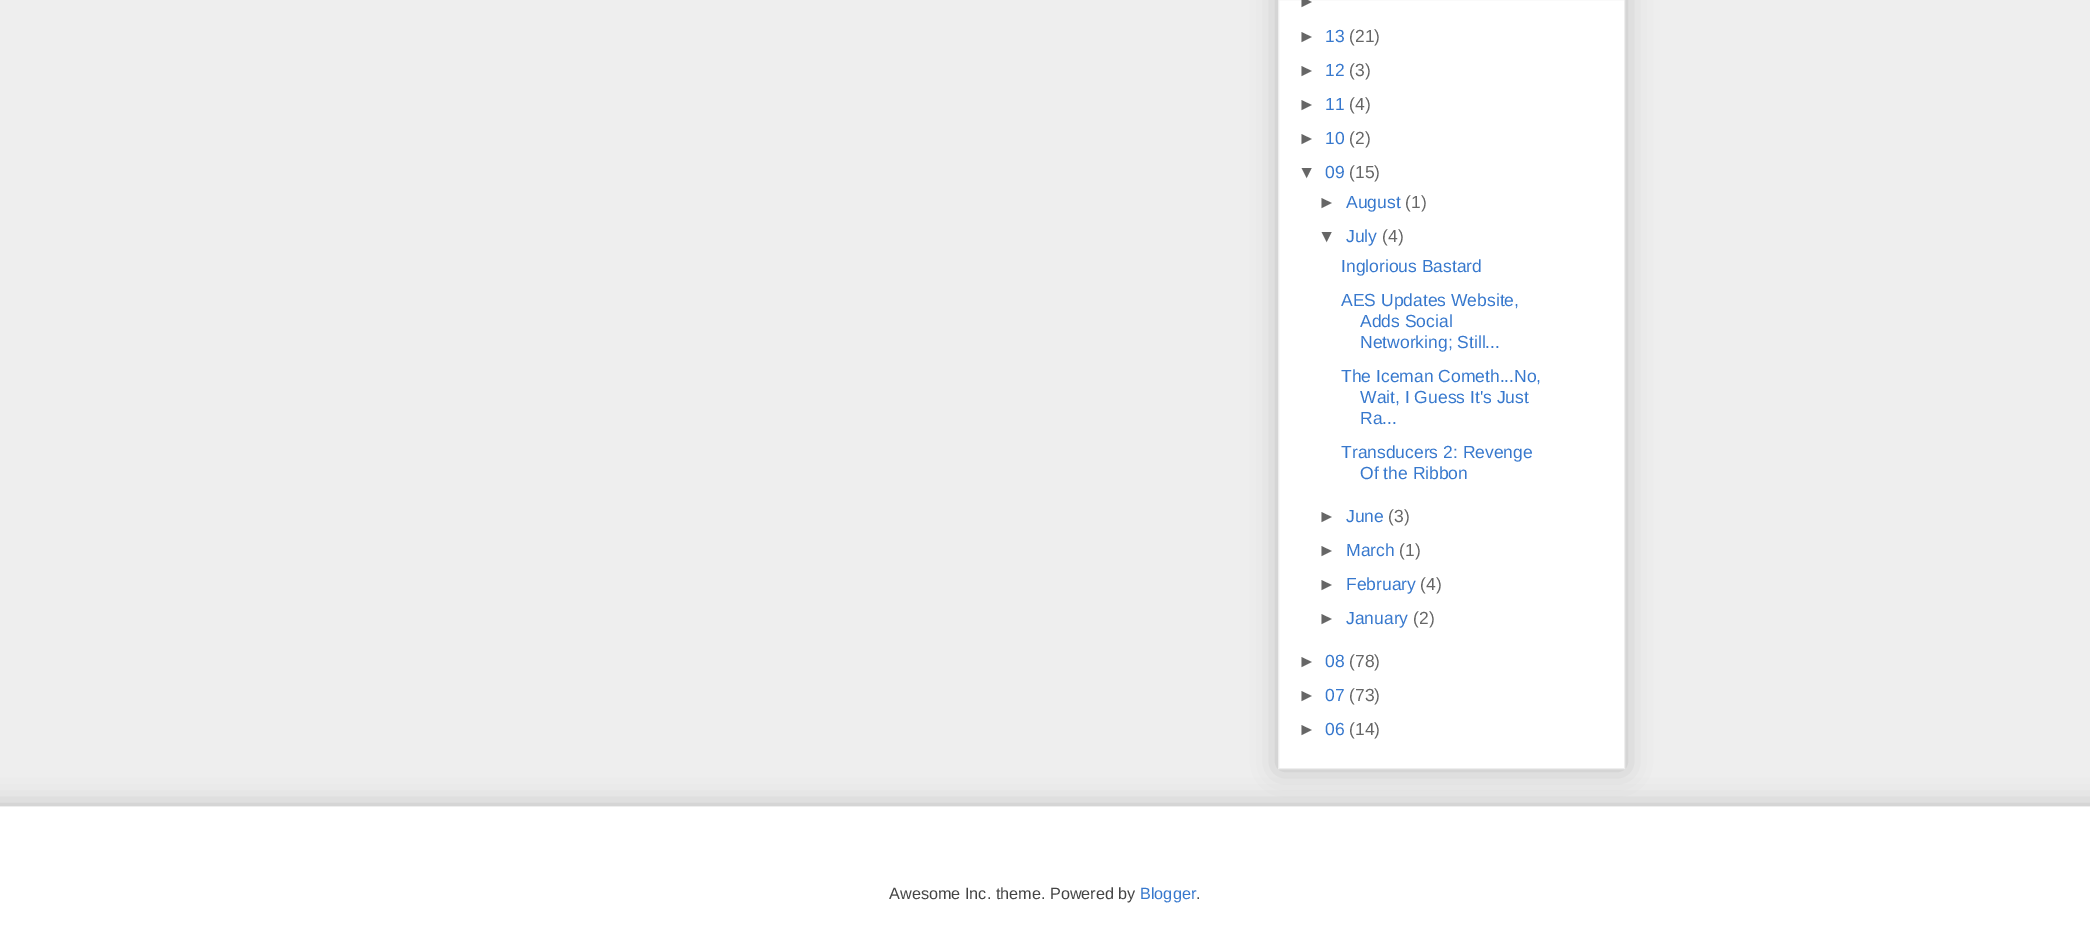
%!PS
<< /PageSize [2090 942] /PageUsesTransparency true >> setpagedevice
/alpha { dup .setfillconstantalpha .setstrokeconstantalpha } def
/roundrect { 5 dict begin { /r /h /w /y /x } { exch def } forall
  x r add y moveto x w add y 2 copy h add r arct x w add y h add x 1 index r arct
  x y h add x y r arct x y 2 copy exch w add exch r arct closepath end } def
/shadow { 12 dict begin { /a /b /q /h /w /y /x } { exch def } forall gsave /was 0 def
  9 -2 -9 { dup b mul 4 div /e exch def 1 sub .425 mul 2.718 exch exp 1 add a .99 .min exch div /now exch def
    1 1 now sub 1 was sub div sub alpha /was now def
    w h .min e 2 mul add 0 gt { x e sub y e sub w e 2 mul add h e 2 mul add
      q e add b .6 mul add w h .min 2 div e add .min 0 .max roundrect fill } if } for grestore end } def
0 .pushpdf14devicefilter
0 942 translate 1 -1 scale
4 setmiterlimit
0.933 setgray
0 0 2090 942 rectfill
0 setgray
1278 -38 347 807 0 12.5 0.2 shadow
1 setgray
newpath 1278.5 -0.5 moveto 1624.5 -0.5 lineto 1624.5 768.5 lineto 1278.5 768.5 lineto closepath gsave fill grestore
0.933 setgray
stroke
/LiberationSans-Regular [17.5 0 0 -17.5 0 0] selectfont
0.4 setgray
1298 7 moveto (►) show
1298 42 moveto (►) show
0.216 0.471 0.804 setrgbcolor
1325 42 moveto (13) show
0.4 setgray
1349 42 moveto (\(21\)) show
1298 76 moveto (►) show
0.216 0.471 0.804 setrgbcolor
1325 76 moveto (12) show
0.4 setgray
1349 76 moveto (\(3\)) show
1298 110 moveto (►) show
0.216 0.471 0.804 setrgbcolor
1325 110 moveto (11) show
0.4 setgray
1349 110 moveto (\(4\)) show
1298 144 moveto (►) show
0.216 0.471 0.804 setrgbcolor
1325 144 moveto (10) show
0.4 setgray
1349 144 moveto (\(2\)) show
1298 178 moveto (▼) show
0.216 0.471 0.804 setrgbcolor
1325 178 moveto (09) show
0.4 setgray
1349 178 moveto (\(15\)) show
1318 208 moveto (►) show
0.216 0.471 0.804 setrgbcolor
1346 208 moveto (August) show
0.4 setgray
1405 208 moveto (\(1\)) show
1318 242 moveto (▼) show
0.216 0.471 0.804 setrgbcolor
1346 242 moveto (July) show
0.4 setgray
1382 242 moveto (\(4\)) show
0.216 0.471 0.804 setrgbcolor
1341 272 moveto (Inglorious Bastard) show
1341 306 moveto (AES Updates Website,) show
1360 327 moveto (Adds Social) show
1360 348 moveto (Networking; Still...) show
1341 382 moveto (The Iceman Cometh...No,) show
1360 403 moveto (Wait, I Guess It's Just) show
1360 424 moveto (Ra...) show
1341 458 moveto (Transducers 2: Revenge) show
1360 479 moveto (Of the Ribbon) show
0.4 setgray
1318 522 moveto (►) show
0.216 0.471 0.804 setrgbcolor
1346 522 moveto (June) show
0.4 setgray
1388 522 moveto (\(3\)) show
1318 556 moveto (►) show
0.216 0.471 0.804 setrgbcolor
1346 556 moveto (March) show
0.4 setgray
1399 556 moveto (\(1\)) show
1318 590 moveto (►) show
0.216 0.471 0.804 setrgbcolor
1346 590 moveto (February) show
0.4 setgray
1420 590 moveto (\(4\)) show
1318 624 moveto (►) show
0.216 0.471 0.804 setrgbcolor
1346 624 moveto (January) show
0.4 setgray
1413 624 moveto (\(2\)) show
1298 667 moveto (►) show
0.216 0.471 0.804 setrgbcolor
1325 667 moveto (08) show
0.4 setgray
1349 667 moveto (\(78\)) show
1298 701 moveto (►) show
0.216 0.471 0.804 setrgbcolor
1325 701 moveto (07) show
0.4 setgray
1349 701 moveto (\(73\)) show
1298 735 moveto (►) show
0.216 0.471 0.804 setrgbcolor
1325 735 moveto (06) show
0.4 setgray
1349 735 moveto (\(14\)) show
0 setgray
-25 806 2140 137 0 12.5 0.2 shadow
1 setgray
0 807 2090 135 rectfill
0.933 setgray
0 806 2090 1 rectfill
/LiberationSans-Regular [16.25 0 0 -16.25 0 0] selectfont
0.267 setgray
889 899 moveto (Awesome Inc. theme. Powered by) show
0.216 0.471 0.804 setrgbcolor
1140 899 moveto (Blogger) show
0.267 setgray
1196 899 moveto (.) show
.poppdf14devicefilter showpage
